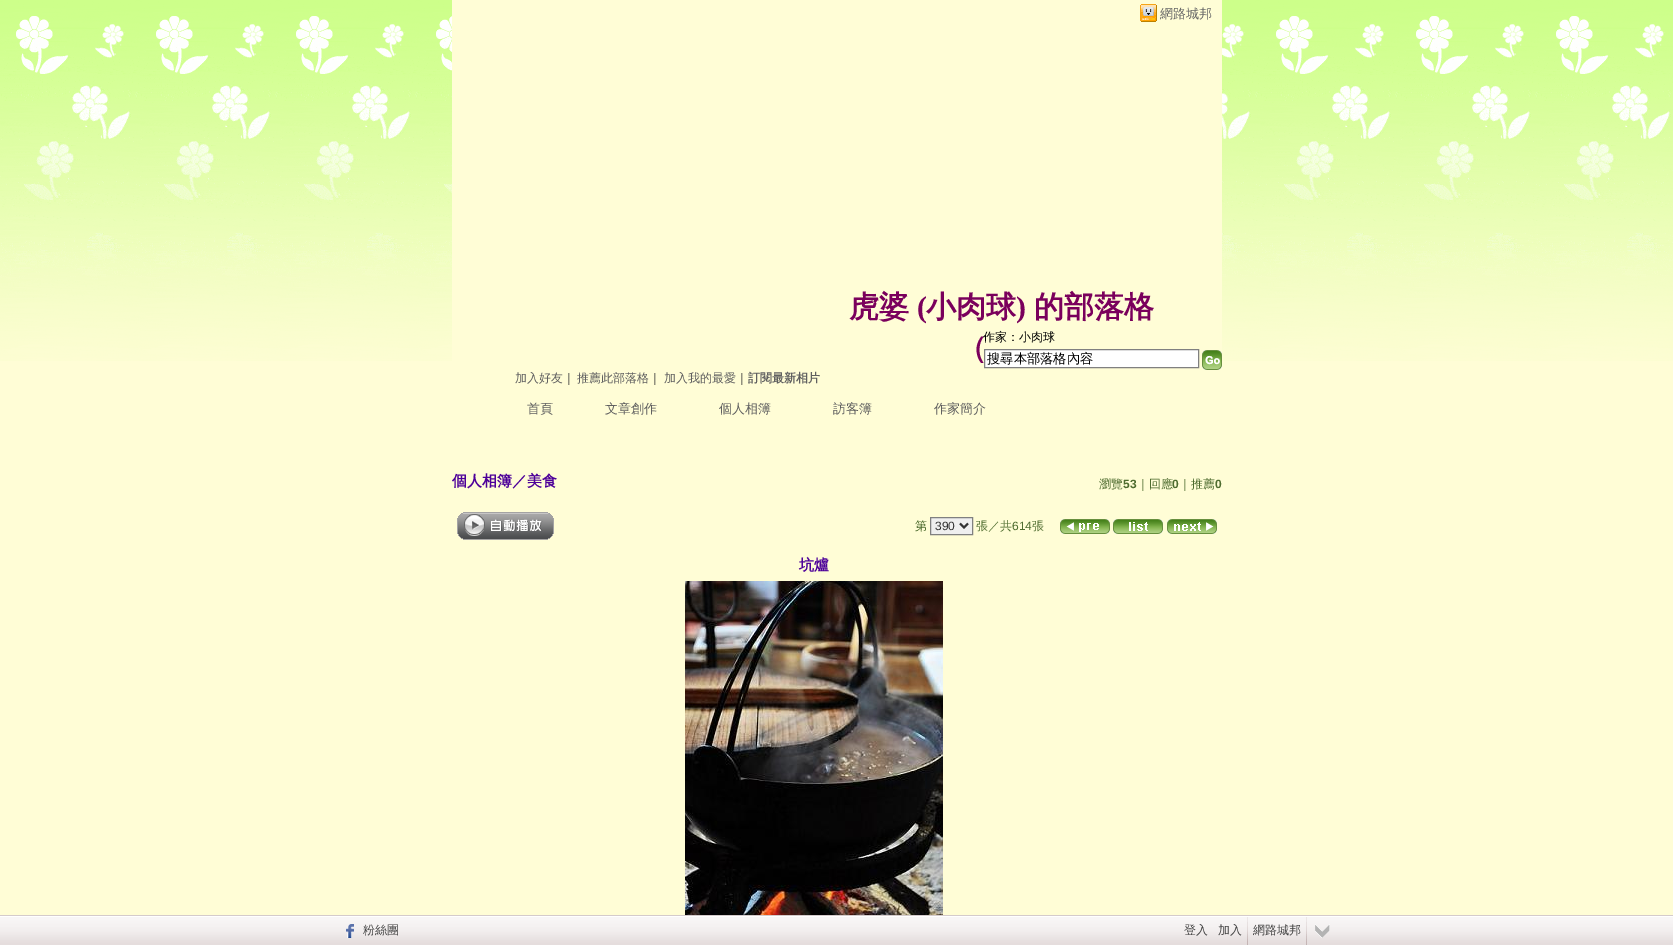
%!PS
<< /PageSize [1673 945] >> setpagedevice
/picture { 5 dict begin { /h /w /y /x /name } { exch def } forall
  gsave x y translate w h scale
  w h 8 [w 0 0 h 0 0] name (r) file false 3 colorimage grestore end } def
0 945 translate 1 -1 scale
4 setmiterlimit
1 0.992 0.839 setrgbcolor
0 0 1673 945 rectfill
(img1.rgb) 0 0 1673 361 picture
452 0 770 361 rectfill
(img2.rgb) 1140 4 17 18 picture
/WenQuanYiZenHei-Medium [13 0 0 -13 0 0] selectfont
0.4 setgray
1160 18 moveto (網路城邦) show
/WenQuanYiZenHei-Bold [30 0 0 -30 0 0] selectfont
0.478 0 0.361 setrgbcolor
849 317 moveto (虎婆) show
/LiberationSerif-Bold [30 0 0 -30 0 0] selectfont
917 317 moveto (\() show
/WenQuanYiZenHei-Bold [30 0 0 -30 0 0] selectfont
926 317 moveto (小肉球) show
/LiberationSerif-Bold [30 0 0 -30 0 0] selectfont
1016 317 moveto (\)) show
/WenQuanYiZenHei-Bold [30 0 0 -30 0 0] selectfont
1034 317 moveto (的部落格) show
957 358 moveto (（) show
/WenQuanYiZenHei-Medium [12 0 0 -12 0 0] selectfont
0 setgray
983 341 moveto (作家：小肉球) show
1 setgray
newpath 984.5 349.5 moveto 1198.5 349.5 lineto 1198.5 367.5 lineto 984.5 367.5 lineto closepath gsave fill grestore
0.502 setgray
stroke
/WenQuanYiZenHei-Medium [13.25 0 0 -13.25 0 0] selectfont
0 setgray
987 363 moveto (搜尋本部落格內容) show
(img3.rgb) 1202 350 20 20 picture
/WenQuanYiZenHei-Medium [12 0 0 -12 0 0] selectfont
0.376 setgray
515 382 moveto (加入好友) show
0.2 setgray
563 382 moveto (｜) show
0.376 setgray
577 382 moveto (推薦此部落格) show
0.2 setgray
649 382 moveto (｜) show
0.376 setgray
664 382 moveto (加入我的最愛) show
0.2 setgray
736 382 moveto (｜) show
/WenQuanYiZenHei-Bold [12 0 0 -12 0 0] selectfont
0.376 setgray
748 382 moveto (訂閱最新相片) show
/WenQuanYiZenHei-Medium [13 0 0 -13 0 0] selectfont
527 413 moveto (首頁) show
605 413 moveto (文章創作) show
719 413 moveto (個人相簿) show
833 413 moveto (訪客簿) show
934 413 moveto (作家簡介) show
/WenQuanYiZenHei-Bold [15 0 0 -15 0 0] selectfont
0.302 0 0.6 setrgbcolor
452 486 moveto (個人相簿／美食) show
/WenQuanYiZenHei-Medium [12 0 0 -12 0 0] selectfont
0.306 0.424 0.184 setrgbcolor
1099 488 moveto (瀏覽) show
/LiberationSans-Bold [12 0 0 -12 0 0] selectfont
1123 488 moveto (53) show
/WenQuanYiZenHei-Medium [12 0 0 -12 0 0] selectfont
1137 488 moveto (｜回應) show
/LiberationSans-Bold [12 0 0 -12 0 0] selectfont
1172 488 moveto (0) show
/WenQuanYiZenHei-Medium [12 0 0 -12 0 0] selectfont
1179 488 moveto (｜推薦) show
/LiberationSans-Bold [12 0 0 -12 0 0] selectfont
1215 488 moveto (0) show
(img4.rgb) 457 512 97 28 picture
/WenQuanYiZenHei-Medium [12 0 0 -12 0 0] selectfont
915 530 moveto (第) show
0.937 setgray
newpath 930.5 517.5 moveto 972.5 517.5 lineto 972.5 534.5 lineto 930.5 534.5 lineto closepath gsave fill grestore
0.502 setgray
stroke
0.2 setgray
2 setlinewidth
newpath 960 523.5 moveto 964 527.5 lineto 968 523.5 lineto stroke
/LiberationSans-Regular [12 0 0 -12 0 0] selectfont
935 530 moveto (390) show
/WenQuanYiZenHei-Medium [12 0 0 -12 0 0] selectfont
0.306 0.424 0.184 setrgbcolor
976 530 moveto (張／共) show
/LiberationSans-Regular [12 0 0 -12 0 0] selectfont
1012 530 moveto (614) show
/WenQuanYiZenHei-Medium [12 0 0 -12 0 0] selectfont
1032 530 moveto (張) show
(img5.rgb) 1060 519 50 15 picture
(img6.rgb) 1113 519 50 15 picture
(img7.rgb) 1167 519 50 15 picture
/WenQuanYiZenHei-Bold [15 0 0 -15 0 0] selectfont
0.302 0 0.6 setrgbcolor
799 570 moveto (坑爐) show
(img8.rgb) 685 581 258 334 picture
(img9.rgb) 0 915 1673 30 picture
(img10.rgb) 346 924 8 14 picture
/WenQuanYiZenHei-Medium [12 0 0 -12 0 0] selectfont
0.267 setgray
363 934 moveto (粉絲團) show
1184 934 moveto (登入) show
1218 934 moveto (加入) show
(img11.rgb) 1247 917 1 28 picture
1253 934 moveto (網路城邦) show
(img11.rgb) 1306 917 1 28 picture
(img12.rgb) 1315 924 15 14 picture
showpage
